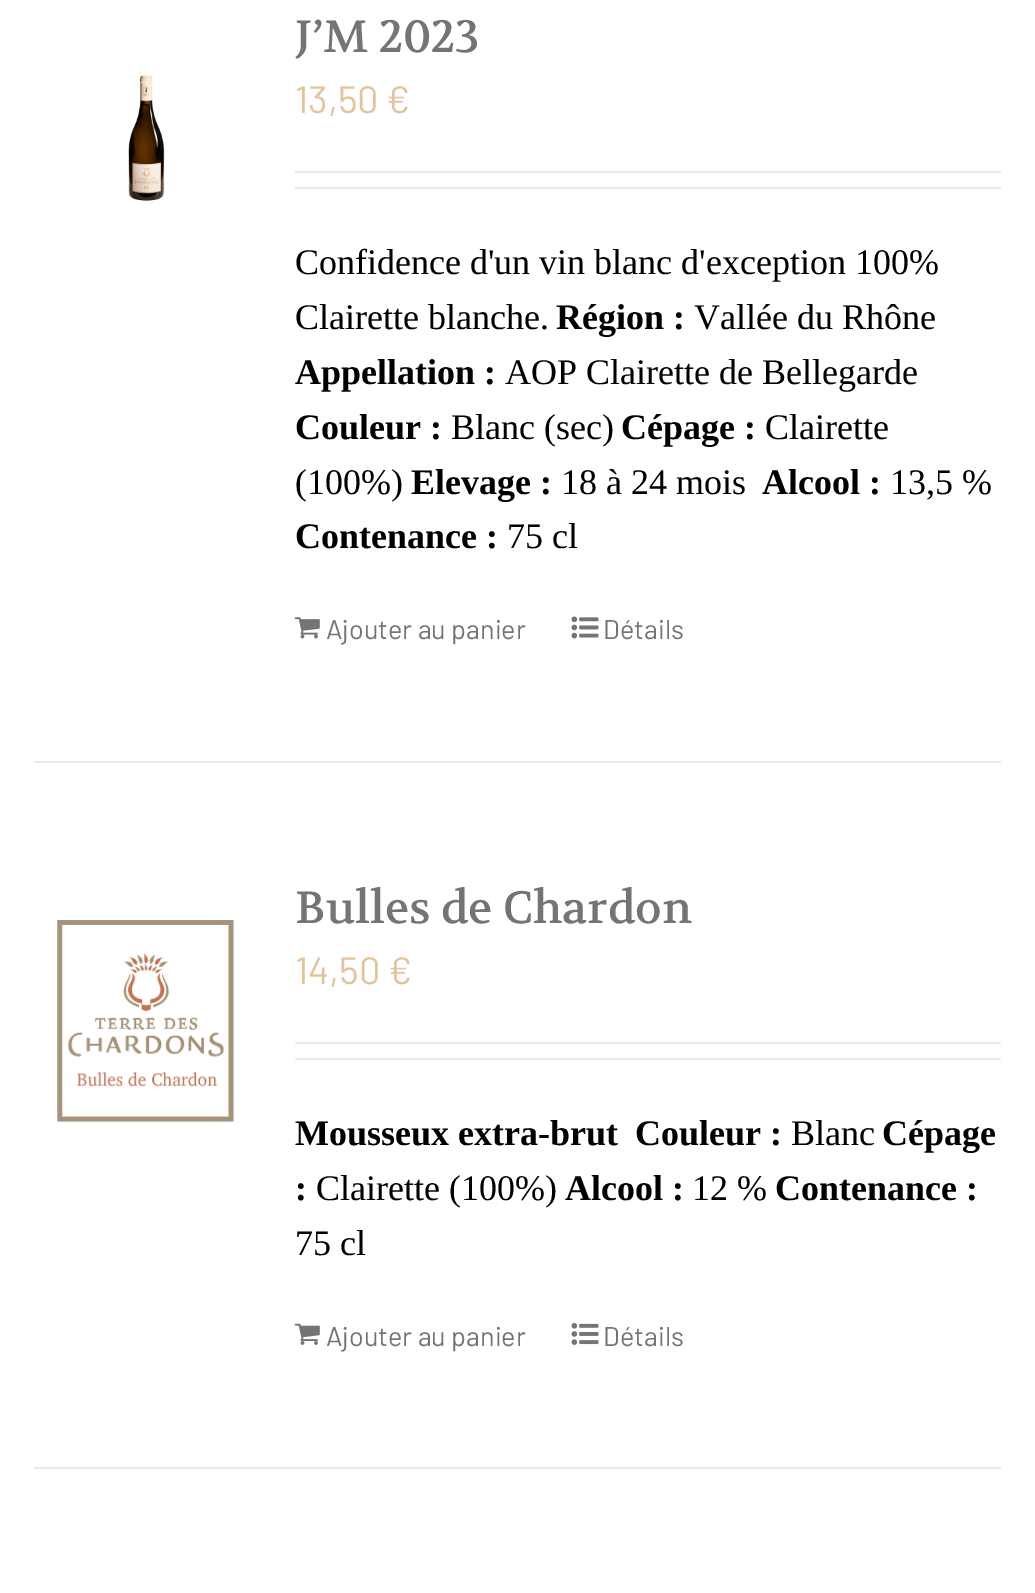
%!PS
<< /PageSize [1035 1593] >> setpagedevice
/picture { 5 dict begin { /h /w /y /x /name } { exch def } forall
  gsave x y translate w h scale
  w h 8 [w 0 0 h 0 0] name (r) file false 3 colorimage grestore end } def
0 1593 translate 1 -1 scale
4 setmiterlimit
1 setgray
0 0 1035 1593 rectfill
0.922 0.918 0.918 setrgbcolor
34 761 967 2 rectfill
(img1.rgb) 128 75 37 126 picture
/Volkhov-Regular [45 0 0 -45 0 0] selectfont
0.455 setgray
295 52 moveto (J’M 2023) show
/Barlow-Regular [38 0 0 -38 0 0] selectfont
0.89 0.765 0.604 setrgbcolor
295 113 moveto (13,50 €) show
0.922 0.918 0.918 setrgbcolor
295 171 706 2 rectfill
295 187 706 2 rectfill
/LiberationSerif-Regular [36 0 0 -36 0 0] selectfont
0 setgray
295 274 moveto (Confidence d'un vin blanc d'exception 100%) show
295 329 moveto (Clairette blanche.) show
/LiberationSerif-Bold [36 0 0 -36 0 0] selectfont
556 329 moveto (Région :) show
/LiberationSerif-Regular [36 0 0 -36 0 0] selectfont
694 329 moveto (Vallée du Rhône) show
/LiberationSerif-Bold [36 0 0 -36 0 0] selectfont
295 384 moveto (Appellation :) show
/LiberationSerif-Regular [36 0 0 -36 0 0] selectfont
505 384 moveto (AOP Clairette de Bellegarde) show
/LiberationSerif-Bold [36 0 0 -36 0 0] selectfont
295 439 moveto (Couleur :) show
/LiberationSerif-Regular [36 0 0 -36 0 0] selectfont
451 439 moveto (Blanc \(sec\)) show
/LiberationSerif-Bold [36 0 0 -36 0 0] selectfont
621 439 moveto (Cépage :) show
/LiberationSerif-Regular [36 0 0 -36 0 0] selectfont
765 439 moveto (Clairette) show
295 494 moveto (\(100%\)) show
/LiberationSerif-Bold [36 0 0 -36 0 0] selectfont
411 494 moveto (Elevage :) show
/LiberationSerif-Regular [36 0 0 -36 0 0] selectfont
561 494 moveto (18 à 24 mois) show
/LiberationSerif-Bold [36 0 0 -36 0 0] selectfont
762 494 moveto (Alcool :) show
/LiberationSerif-Regular [36 0 0 -36 0 0] selectfont
890 494 moveto (13,5 %) show
/LiberationSerif-Bold [36 0 0 -36 0 0] selectfont
295 548 moveto (Contenance :) show
/LiberationSerif-Regular [36 0 0 -36 0 0] selectfont
507 548 moveto (75 cl) show
(img2.rgb) 294 617 26 22 picture
/Barlow-Regular [27 0 0 -27 0 0] selectfont
0.455 setgray
326 639 moveto (Ajouter au panier) show
(img3.rgb) 571 616 28 23 picture
603 639 moveto (Détails) show
0.922 0.918 0.918 setrgbcolor
34 1467 967 2 rectfill
(img4.rgb) 57 920 177 202 picture
/Volkhov-Regular [45 0 0 -45 0 0] selectfont
0.455 setgray
295 923 moveto (Bulles de Chardon) show
/Barlow-Regular [38 0 0 -38 0 0] selectfont
0.89 0.765 0.604 setrgbcolor
295 984 moveto (14,50 €) show
0.922 0.918 0.918 setrgbcolor
295 1042 706 2 rectfill
295 1058 706 2 rectfill
/LiberationSerif-Bold [36 0 0 -36 0 0] selectfont
0 setgray
295 1145 moveto (Mousseux extra-brut) show
635 1145 moveto (Couleur :) show
/LiberationSerif-Regular [36 0 0 -36 0 0] selectfont
791 1145 moveto (Blanc) show
/LiberationSerif-Bold [36 0 0 -36 0 0] selectfont
882 1145 moveto (Cépage) show
295 1200 moveto (:) show
/LiberationSerif-Regular [36 0 0 -36 0 0] selectfont
316 1200 moveto (Clairette \(100%\)) show
/LiberationSerif-Bold [36 0 0 -36 0 0] selectfont
565 1200 moveto (Alcool :) show
/LiberationSerif-Regular [36 0 0 -36 0 0] selectfont
692 1200 moveto (12 %) show
/LiberationSerif-Bold [36 0 0 -36 0 0] selectfont
775 1200 moveto (Contenance :) show
/LiberationSerif-Regular [36 0 0 -36 0 0] selectfont
295 1255 moveto (75 cl) show
(img5.rgb) 294 1323 26 22 picture
/Barlow-Regular [27 0 0 -27 0 0] selectfont
0.455 setgray
326 1346 moveto (Ajouter au panier) show
(img6.rgb) 571 1323 28 22 picture
603 1346 moveto (Détails) show
showpage
